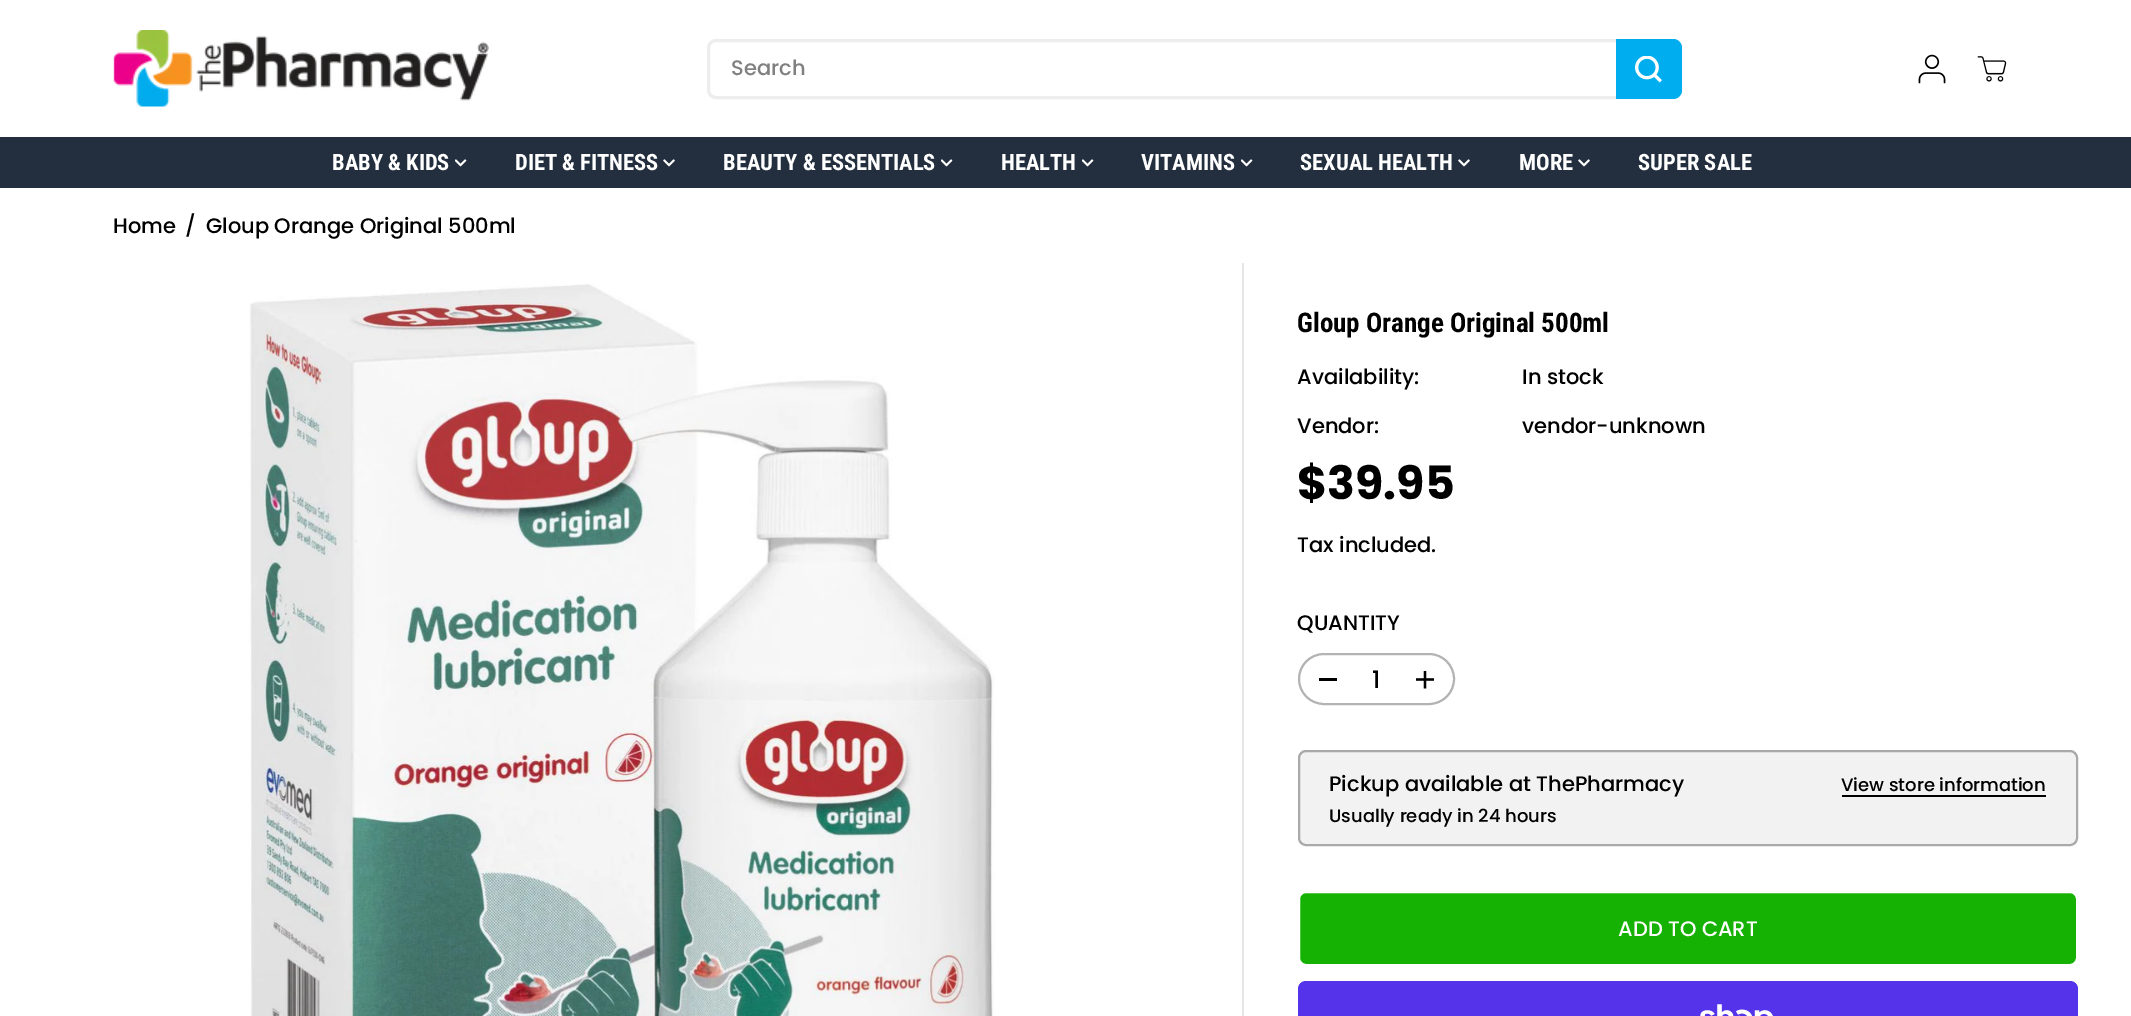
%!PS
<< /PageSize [2131 1016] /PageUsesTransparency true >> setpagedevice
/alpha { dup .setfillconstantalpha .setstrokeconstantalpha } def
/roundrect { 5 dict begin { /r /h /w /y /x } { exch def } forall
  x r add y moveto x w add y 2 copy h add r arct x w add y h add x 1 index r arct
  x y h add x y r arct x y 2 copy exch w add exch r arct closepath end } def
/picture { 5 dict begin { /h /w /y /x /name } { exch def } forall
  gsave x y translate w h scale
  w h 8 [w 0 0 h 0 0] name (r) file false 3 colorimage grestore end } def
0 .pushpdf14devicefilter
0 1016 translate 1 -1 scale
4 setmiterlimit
1 setgray
0 0 2131 1016 rectfill
(img1.rgb) 113 30 376 77 picture
0.929 setgray
3 setlinewidth
708.5 40.5 972 57 7.5 roundrect stroke
/Poppins-Medium [21 0 0 -21 0 0] selectfont
0.502 setgray
731 75 moveto (Search) show
0 0.678 0.933 setrgbcolor
newpath 1616 39 moveto 1673 39 lineto 1678 39 1682 43 1682 48 curveto 1682 90 lineto 1682 95 1678 99 1673 99 curveto 1616 99 lineto closepath fill
(img2.rgb) 1635 56 27 27 picture
(img3.rgb) 1918 54 28 30 picture
(img4.rgb) 1977 56 30 26 picture
0.137 0.184 0.243 setrgbcolor
0 137 2131 51 rectfill
/RobotoCondensed-Bold [22.5 0 0 -22.5 0 0] selectfont
1 setgray
332 170 moveto (BABY & KIDS) show
(img5.rgb) 455 159 12 8 picture
515 170 moveto (DIET & FITNESS) show
(img6.rgb) 663 159 12 8 picture
723 170 moveto (BEAUTY & ESSENTIALS) show
(img5.rgb) 941 159 12 8 picture
1001 170 moveto (HEALTH) show
(img5.rgb) 1082 159 12 8 picture
1141 170 moveto (VITAMINS) show
(img5.rgb) 1241 159 12 8 picture
1300 170 moveto (SEXUAL HEALTH) show
(img6.rgb) 1458 159 12 8 picture
1519 170 moveto (MORE) show
(img6.rgb) 1578 159 12 8 picture
1638 170 moveto (SUPER SALE) show
/Poppins-Medium [21 0 0 -21 0 0] selectfont
0 setgray
113 233 moveto (Home) show
185 233 moveto (/) show
206 233 moveto (Gloup Orange Original 500ml) show
0.902 setgray
1242 263 2 753 rectfill
(img7.rgb) 249 284 746 732 picture
/RobotoCondensed-Bold [27 0 0 -27 0 0] selectfont
0 setgray
1297 332 moveto (Gloup Orange Original 500ml) show
/Poppins-Medium [21 0 0 -21 0 0] selectfont
1297 384 moveto (Availability:) show
1522 384 moveto (In stock) show
1297 433 moveto (Vendor:) show
1522 433 moveto (vendor-unknown) show
/Poppins-Bold [46 0 0 -46 0 0] selectfont
1297 499 moveto ($39.95) show
/Poppins-Medium [21 0 0 -21 0 0] selectfont
1297 552 moveto (Tax included.) show
1297 630 moveto (QUANTITY) show
0.702 setgray
2 setlinewidth
1299 654 155 50 25 roundrect stroke
0 setgray
1319 678 18 3 rectfill
/Poppins-Medium [24 0 0 -24 0 0] selectfont
1372 688 moveto (1) show
(img8.rgb) 1416 671 18 18 picture
0.949 setgray
1298 750 780 96 8 roundrect fill
0.3 alpha
0 setgray
1299 751 778 94 7 roundrect stroke
/Poppins-Medium [21 0 0 -21 0 0] selectfont
1 alpha
1329 791 moveto (Pickup available at ThePharmacy) show
/Poppins-Medium [18 0 0 -18 0 0] selectfont
1329 822 moveto (Usually ready in 24 hours) show
1841 791 moveto (View store information) show
1842 795 204 2 rectfill
0.082 0.694 0.012 setrgbcolor
1299 892 778 73 7 roundrect gsave fill grestore
1 setgray
stroke
/Poppins-Medium [21 0 0 -21 0 0] selectfont
1618 936 moveto (ADD TO CART) show
0.329 0.2 0.922 setrgbcolor
1298 981 780 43 8 roundrect fill
(img9.rgb) 1700 1004 73 12 picture
.poppdf14devicefilter showpage
